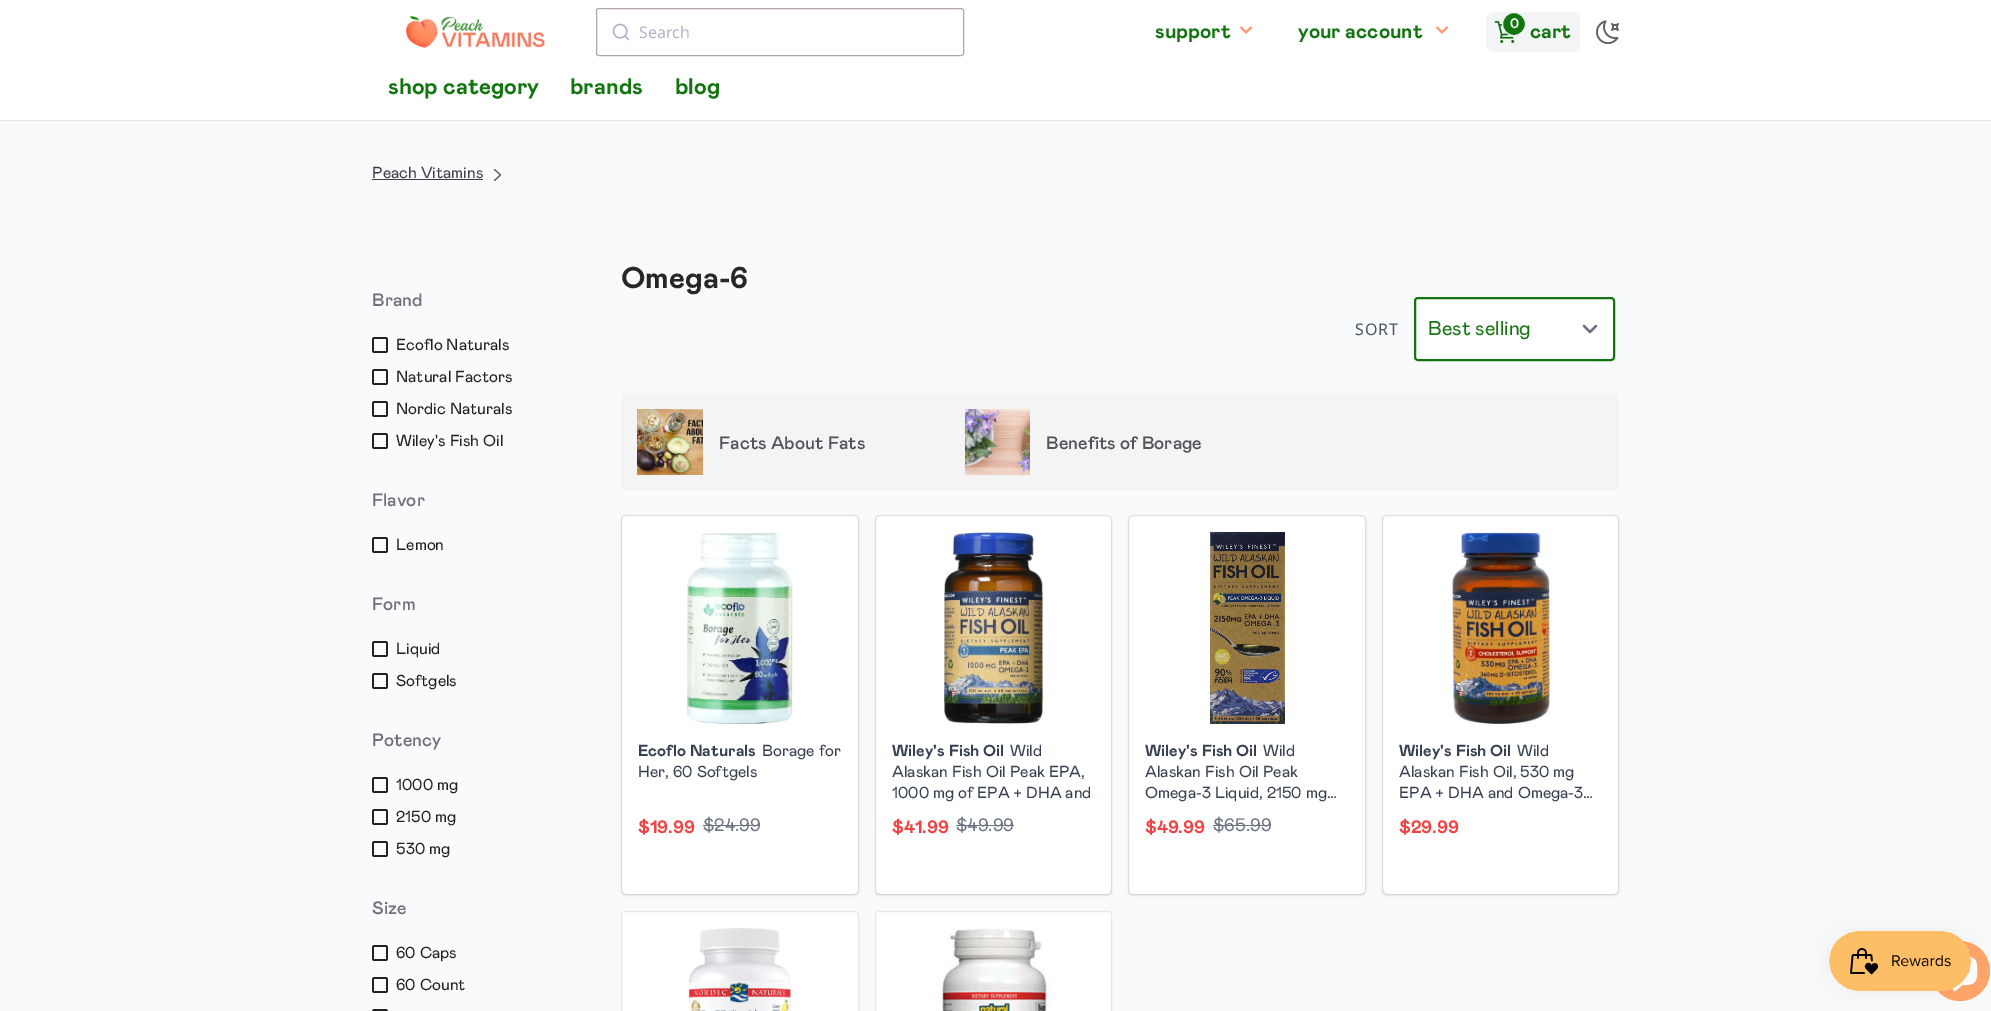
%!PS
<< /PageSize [1991 1011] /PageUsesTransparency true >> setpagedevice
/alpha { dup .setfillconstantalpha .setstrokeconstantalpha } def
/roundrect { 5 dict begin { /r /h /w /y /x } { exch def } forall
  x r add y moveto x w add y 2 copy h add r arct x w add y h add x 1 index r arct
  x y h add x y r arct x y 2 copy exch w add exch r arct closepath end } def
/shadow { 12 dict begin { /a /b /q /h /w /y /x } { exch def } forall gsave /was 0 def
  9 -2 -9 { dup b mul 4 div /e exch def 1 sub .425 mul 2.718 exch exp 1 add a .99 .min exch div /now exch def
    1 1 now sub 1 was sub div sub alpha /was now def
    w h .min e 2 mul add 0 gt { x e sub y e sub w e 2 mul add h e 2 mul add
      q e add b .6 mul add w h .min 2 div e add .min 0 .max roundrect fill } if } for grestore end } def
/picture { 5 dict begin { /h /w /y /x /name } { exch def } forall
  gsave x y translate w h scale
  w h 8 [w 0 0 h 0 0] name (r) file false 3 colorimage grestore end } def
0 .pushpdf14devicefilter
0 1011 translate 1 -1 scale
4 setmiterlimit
0.976 0.98 0.984 setrgbcolor
0 0 1991 1011 rectfill
1 setgray
0 0 1991 120 rectfill
0.898 0.906 0.922 setrgbcolor
0 120 1991 1 rectfill
(img1.rgb) 406 16 139 32 picture
0.694 0.651 0.639 setrgbcolor
596.5 8.5 367 47 2.5 roundrect stroke
(img2.rgb) 612 23 18 18 picture
/NotoSans-Regular [16 0 0 -16 0 0] selectfont
0.702 0.698 0.784 setrgbcolor
639 38 moveto (Search) show
/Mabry-Bold [20 0 0 -20 0 0] selectfont
0.075 0.459 0.063 setrgbcolor
1155 38 moveto (support) show
(img3.rgb) 1240 26 12 8 picture
1298 38 moveto (your account) show
(img3.rgb) 1436 26 12 8 picture
0.953 0.957 0.965 setrgbcolor
1486 12 94 40 8 roundrect fill
(img4.rgb) 1494 21 21 22 picture
0.075 0.459 0.063 setrgbcolor
newpath 1514 24 11.5 0 360 arc closepath gsave fill grestore
0.953 0.957 0.965 setrgbcolor
stroke
/Mabry-Bold [14 0 0 -14 0 0] selectfont
1510 28 moveto (0) show
/Mabry-Bold [20 0 0 -20 0 0] selectfont
0.075 0.459 0.063 setrgbcolor
1530 38 moveto (cart) show
(img5.rgb) 1596 20 23 24 picture
/Mabry-Bold [22.5 0 0 -22.5 0 0] selectfont
388 94 moveto (shop category) show
570 94 moveto (brands) show
675 94 moveto (blog) show
/Mabry-Regular [16 0 0 -16 0 0] selectfont
0.247 0.247 0.275 setrgbcolor
372 178 moveto (Peach Vitamins) show
372 179 111 1 rectfill
0.322 0.322 0.357 setrgbcolor
1 setlinecap
1 setlinejoin
newpath 494.5 169.5 moveto 500.5 175 lineto 494.5 180.5 lineto stroke
/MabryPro-Medium [18 0 0 -18 0 0] selectfont
0.443 0.443 0.478 setrgbcolor
372 306 moveto (Brand) show
(img6.rgb) 372 337 16 16 picture
/Mabry-Regular [16 0 0 -16 0 0] selectfont
0.133 setgray
396 350 moveto (Ecoflo Naturals) show
(img6.rgb) 372 369 16 16 picture
396 382 moveto (Natural Factors) show
(img6.rgb) 372 401 16 16 picture
396 414 moveto (Nordic Naturals) show
(img6.rgb) 372 433 16 16 picture
396 446 moveto (Wiley's Fish Oil) show
/MabryPro-Medium [18 0 0 -18 0 0] selectfont
0.443 0.443 0.478 setrgbcolor
372 506 moveto (Flavor) show
(img6.rgb) 372 537 16 16 picture
/Mabry-Regular [16 0 0 -16 0 0] selectfont
0.133 setgray
396 550 moveto (Lemon) show
/MabryPro-Medium [18 0 0 -18 0 0] selectfont
0.443 0.443 0.478 setrgbcolor
372 610 moveto (Form) show
(img6.rgb) 372 641 16 16 picture
/Mabry-Regular [16 0 0 -16 0 0] selectfont
0.133 setgray
396 654 moveto (Liquid) show
(img6.rgb) 372 673 16 16 picture
396 686 moveto (Softgels) show
/MabryPro-Medium [18 0 0 -18 0 0] selectfont
0.443 0.443 0.478 setrgbcolor
372 746 moveto (Potency) show
(img6.rgb) 372 777 16 16 picture
/Mabry-Regular [16 0 0 -16 0 0] selectfont
0.133 setgray
396 790 moveto (1000 mg) show
(img6.rgb) 372 809 16 16 picture
396 822 moveto (2150 mg) show
(img6.rgb) 372 841 16 16 picture
396 854 moveto (530 mg) show
/MabryPro-Medium [18 0 0 -18 0 0] selectfont
0.443 0.443 0.478 setrgbcolor
372 914 moveto (Size) show
(img6.rgb) 372 945 16 16 picture
/Mabry-Regular [16 0 0 -16 0 0] selectfont
0.133 setgray
396 958 moveto (60 Caps) show
(img6.rgb) 372 977 16 16 picture
396 990 moveto (60 Count) show
(img7.rgb) 372 1009 16 2 picture
/Mabry-Bold [30 0 0 -30 0 0] selectfont
0.153 0.153 0.165 setrgbcolor
621 288 moveto (Omega-6) show
/NotoSans-Regular [16 0 0 -16 0 0] selectfont
0.294 0.333 0.388 setrgbcolor
1355 335 moveto 1 0 (SORT) ashow
1 setgray
1414 297 201 64 4 roundrect fill
0.42 0.447 0.502 setrgbcolor
2.2 setlinewidth
newpath 1584 326 moveto 1590 332 lineto 1596 326 lineto stroke
0.075 0.459 0.063 setrgbcolor
2 setlinewidth
0 setlinecap
0 setlinejoin
1415 298 199 62 3 roundrect stroke
/Mabry-Regular [20 0 0 -20 0 0] selectfont
1428 335 moveto (Best selling) show
0.957 0.957 0.961 setrgbcolor
621 393 998 98 6 roundrect fill
(img8.rgb) 637 409 66 66 picture
/MabryPro-Medium [18 0 0 -18 0 0] selectfont
0.322 0.322 0.357 setrgbcolor
719 449 moveto (Facts About Fats) show
(img9.rgb) 965 409 65 66 picture
1046 449 moveto (Benefits of Borage) show
1 setgray
621.5 515.5 237 379 3.5 roundrect gsave fill grestore
0.898 0.906 0.922 setrgbcolor
1 setlinewidth
stroke
(img10.rgb) 687 533 106 191 picture
0.42 0.447 0.502 setrgbcolor
703 825 57 1 rectfill
gsave
newpath 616 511 moveto 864 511 lineto 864 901 lineto 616 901 lineto closepath 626 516 moveto 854 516 lineto 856 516 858 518 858 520 curveto 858 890 lineto 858 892 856 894 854 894 curveto 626 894 lineto 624 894 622 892 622 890 curveto 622 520 lineto 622 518 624 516 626 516 curveto closepath eoclip newpath
0 setgray
622 517 236 378 4 1.5 0.1 shadow
grestore
/Mabry-Bold [16 0 0 -16 0 0] selectfont
0.216 0.255 0.318 setrgbcolor
638 756 moveto (Ecoflo Naturals) show
/Mabry-Regular [16 0 0 -16 0 0] selectfont
762 756 moveto (Borage for) show
638 777 moveto (Her, 60 Softgels) show
/Mabry-Bold [18 0 0 -18 0 0] selectfont
0.937 0.267 0.267 setrgbcolor
638 833 moveto ($19.99) show
/Mabry-Regular [18 0 0 -18 0 0] selectfont
0.42 0.447 0.502 setrgbcolor
703 831 moveto ($24.99) show
1 setgray
875.5 515.5 236 379 3.5 roundrect gsave fill grestore
0.898 0.906 0.922 setrgbcolor
stroke
(img11.rgb) 944 532 100 192 picture
0.42 0.447 0.502 setrgbcolor
956 825 58 1 rectfill
gsave
newpath 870 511 moveto 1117 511 lineto 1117 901 lineto 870 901 lineto closepath 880 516 moveto 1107 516 lineto 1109 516 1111 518 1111 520 curveto 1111 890 lineto 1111 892 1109 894 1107 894 curveto 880 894 lineto 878 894 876 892 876 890 curveto 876 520 lineto 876 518 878 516 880 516 curveto closepath eoclip newpath
0 setgray
876 517 235 378 4 1.5 0.1 shadow
grestore
/Mabry-Bold [16 0 0 -16 0 0] selectfont
0.216 0.255 0.318 setrgbcolor
892 756 moveto (Wiley's Fish Oil) show
/Mabry-Regular [16 0 0 -16 0 0] selectfont
1010 756 moveto (Wild) show
892 777 moveto (Alaskan Fish Oil Peak EPA,) show
892 798 moveto (1000 mg of EPA + DHA and) show
/Mabry-Bold [18 0 0 -18 0 0] selectfont
0.937 0.267 0.267 setrgbcolor
892 833 moveto ($41.99) show
/Mabry-Regular [18 0 0 -18 0 0] selectfont
0.42 0.447 0.502 setrgbcolor
956 831 moveto ($49.99) show
1 setgray
1128.5 515.5 237 379 3.5 roundrect gsave fill grestore
0.898 0.906 0.922 setrgbcolor
stroke
(img12.rgb) 1210 532 75 192 picture
0.42 0.447 0.502 setrgbcolor
1213 825 58 1 rectfill
gsave
newpath 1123 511 moveto 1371 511 lineto 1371 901 lineto 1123 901 lineto closepath 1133 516 moveto 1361 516 lineto 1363 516 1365 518 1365 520 curveto 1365 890 lineto 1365 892 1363 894 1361 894 curveto 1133 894 lineto 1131 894 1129 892 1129 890 curveto 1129 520 lineto 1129 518 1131 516 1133 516 curveto closepath eoclip newpath
0 setgray
1129 517 236 378 4 1.5 0.1 shadow
grestore
/Mabry-Bold [16 0 0 -16 0 0] selectfont
0.216 0.255 0.318 setrgbcolor
1145 756 moveto (Wiley's Fish Oil) show
/Mabry-Regular [16 0 0 -16 0 0] selectfont
1263 756 moveto (Wild) show
1145 777 moveto (Alaskan Fish Oil Peak) show
1145 798 moveto (Omega-3 Liquid, 2150 mg…) show
/Mabry-Bold [18 0 0 -18 0 0] selectfont
0.937 0.267 0.267 setrgbcolor
1145 833 moveto ($49.99) show
/Mabry-Regular [18 0 0 -18 0 0] selectfont
0.42 0.447 0.502 setrgbcolor
1213 831 moveto ($65.99) show
1 setgray
1382.5 515.5 236 379 3.5 roundrect gsave fill grestore
0.898 0.906 0.922 setrgbcolor
stroke
(img13.rgb) 1452 532 99 192 picture
gsave
newpath 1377 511 moveto 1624 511 lineto 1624 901 lineto 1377 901 lineto closepath 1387 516 moveto 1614 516 lineto 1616 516 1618 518 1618 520 curveto 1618 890 lineto 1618 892 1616 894 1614 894 curveto 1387 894 lineto 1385 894 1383 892 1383 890 curveto 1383 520 lineto 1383 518 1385 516 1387 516 curveto closepath eoclip newpath
0 setgray
1383 517 235 378 4 1.5 0.1 shadow
grestore
/Mabry-Bold [16 0 0 -16 0 0] selectfont
0.216 0.255 0.318 setrgbcolor
1399 756 moveto (Wiley's Fish Oil) show
/Mabry-Regular [16 0 0 -16 0 0] selectfont
1517 756 moveto (Wild) show
1399 777 moveto (Alaskan Fish Oil, 530 mg) show
1399 798 moveto (EPA + DHA and Omega-3…) show
/Mabry-Bold [18 0 0 -18 0 0] selectfont
0.937 0.267 0.267 setrgbcolor
1399 833 moveto ($29.99) show
1 setgray
621.5 911.5 237 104 3.5 roundrect gsave fill grestore
0.898 0.906 0.922 setrgbcolor
stroke
(img14.rgb) 689 928 103 83 picture
1 setgray
875.5 911.5 236 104 3.5 roundrect gsave fill grestore
0.898 0.906 0.922 setrgbcolor
stroke
(img15.rgb) 935 928 117 83 picture
1 0.651 0.416 setrgbcolor
newpath 1960 971 30 0 360 arc closepath fill
(img17.rgb) 1952 957 26 35 picture
0 setgray
1829 931 142 60 30 12.5 0.05 shadow
(img16.rgb) 1829 931 142 60 picture
.poppdf14devicefilter showpage
